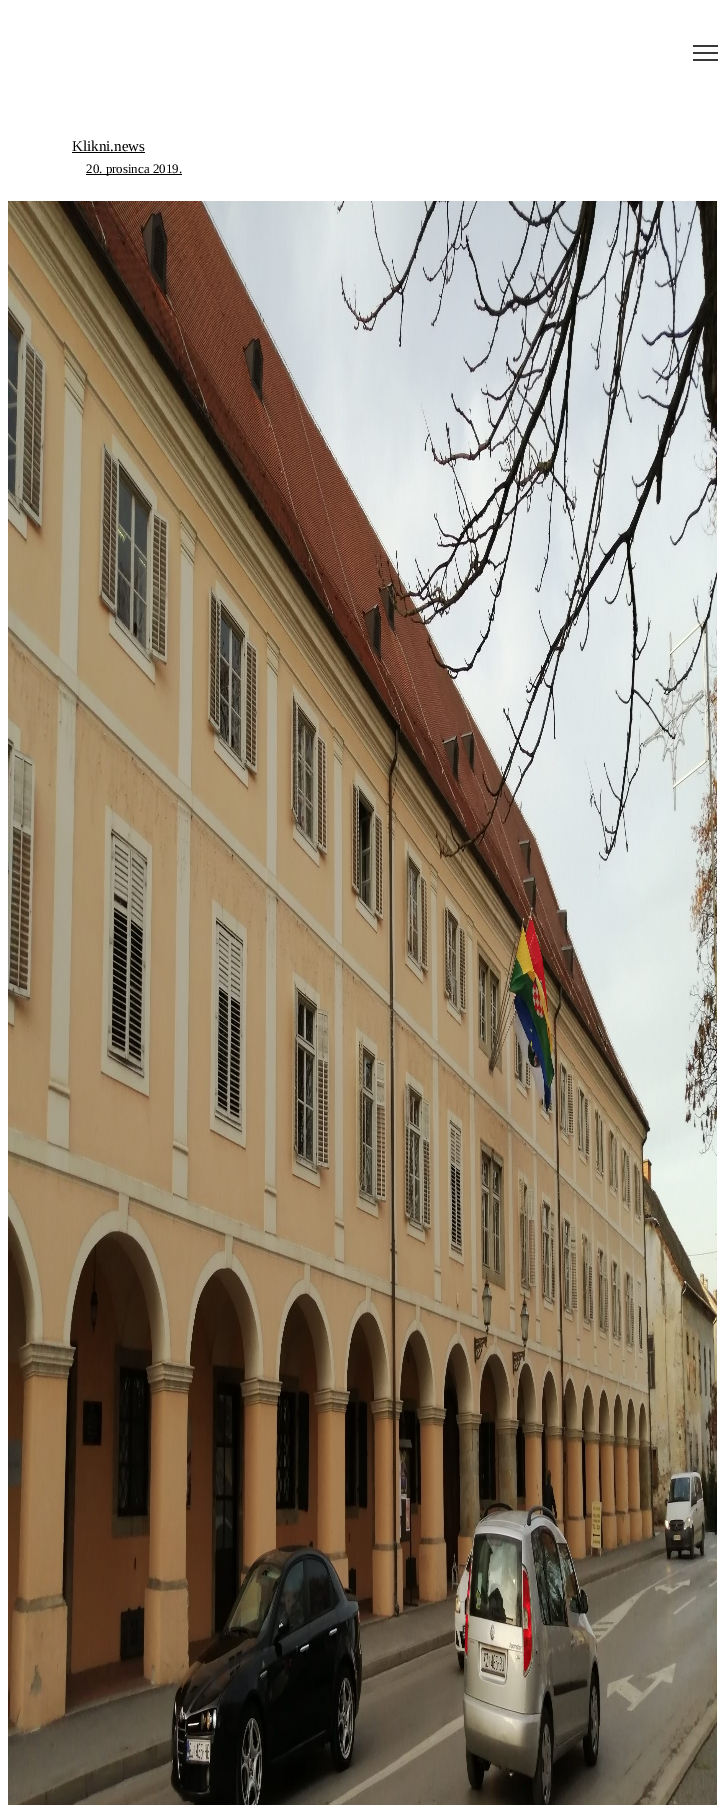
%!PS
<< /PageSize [725 1805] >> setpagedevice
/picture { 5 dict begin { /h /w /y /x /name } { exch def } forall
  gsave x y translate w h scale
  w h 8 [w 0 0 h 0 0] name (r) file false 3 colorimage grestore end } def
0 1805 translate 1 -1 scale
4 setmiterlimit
1 setgray
0 0 725 1805 rectfill
0.22 setgray
693 45 25 2 rectfill
693 52 25 2 rectfill
693 59 25 2 rectfill
/LiberationSerif-Regular [15 0 0 -15 0 0] selectfont
0 setgray
72 151 moveto (Klikni.news) show
72 152 73 1 rectfill
86 174 96 1 rectfill
/LiberationSerif-Regular [13 0 0 -13 0 0] selectfont
86 173 moveto (20. prosinca 2019.) show
(img1.rgb) 8 201 709 1604 picture
showpage
